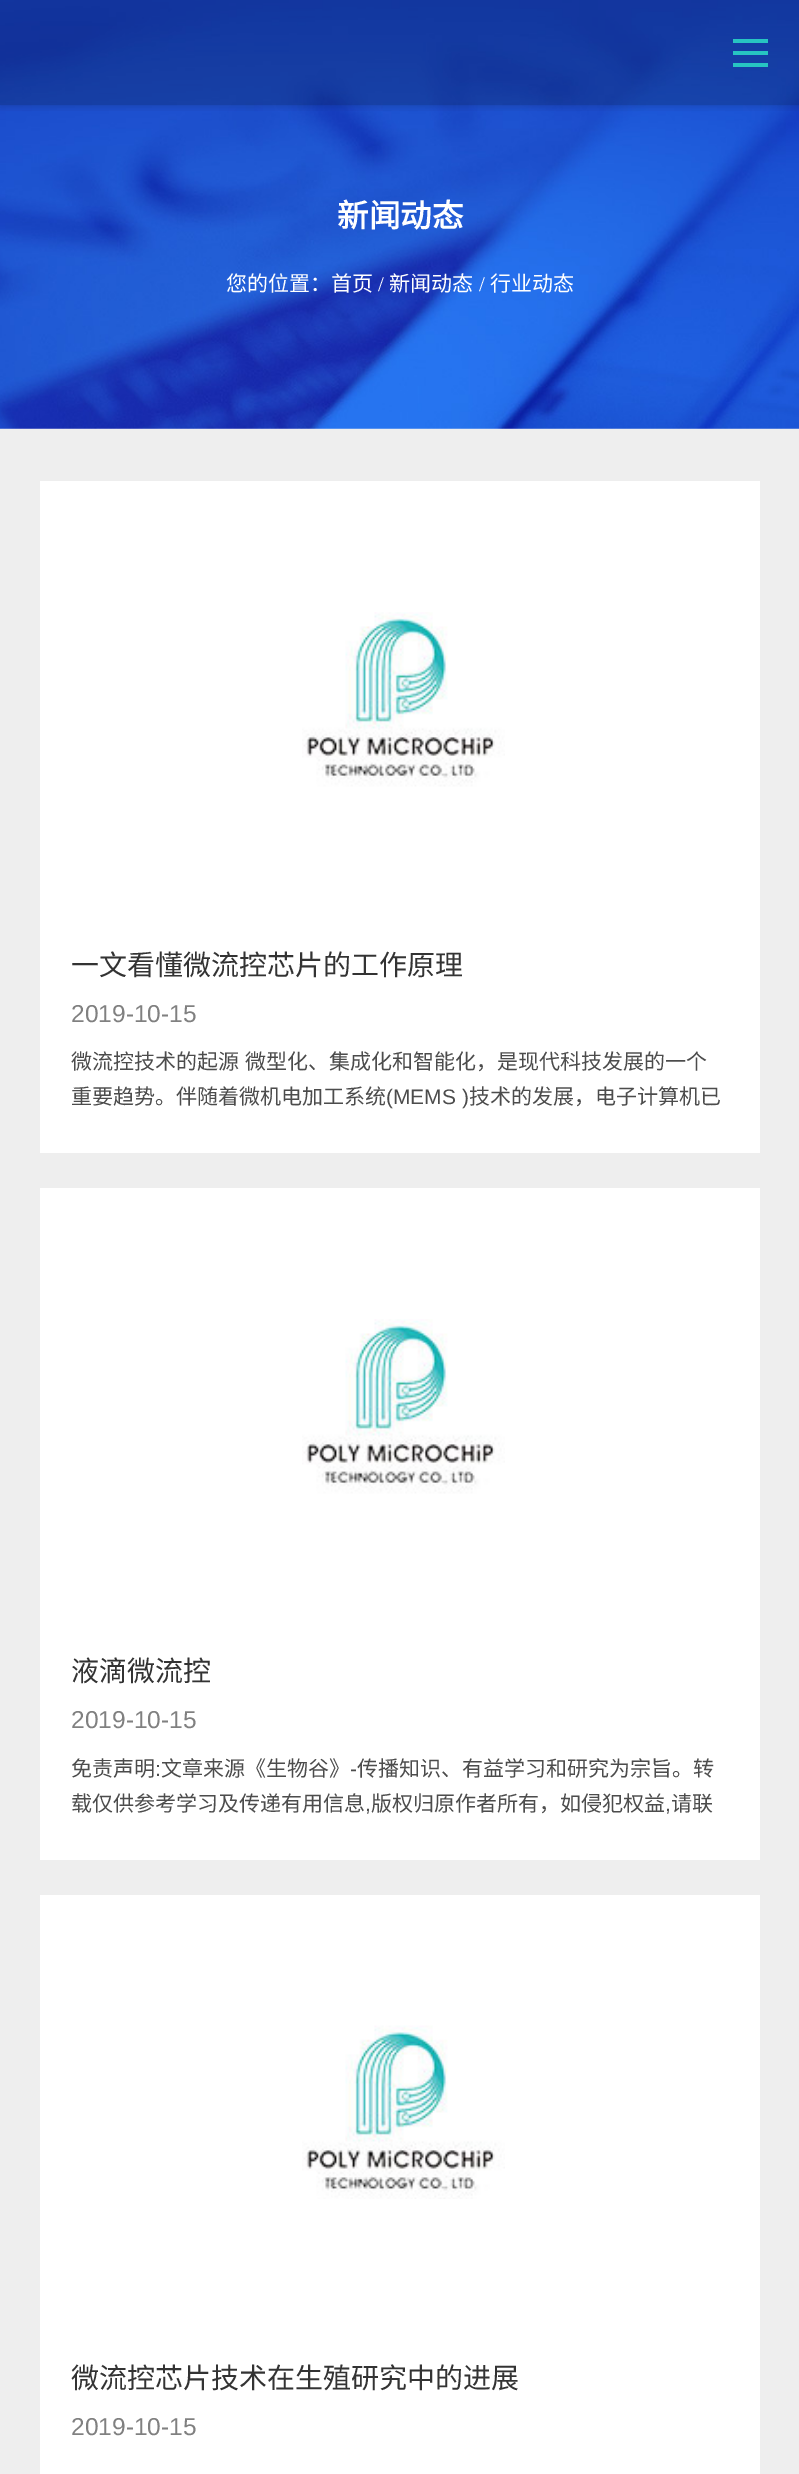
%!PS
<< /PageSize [799 2474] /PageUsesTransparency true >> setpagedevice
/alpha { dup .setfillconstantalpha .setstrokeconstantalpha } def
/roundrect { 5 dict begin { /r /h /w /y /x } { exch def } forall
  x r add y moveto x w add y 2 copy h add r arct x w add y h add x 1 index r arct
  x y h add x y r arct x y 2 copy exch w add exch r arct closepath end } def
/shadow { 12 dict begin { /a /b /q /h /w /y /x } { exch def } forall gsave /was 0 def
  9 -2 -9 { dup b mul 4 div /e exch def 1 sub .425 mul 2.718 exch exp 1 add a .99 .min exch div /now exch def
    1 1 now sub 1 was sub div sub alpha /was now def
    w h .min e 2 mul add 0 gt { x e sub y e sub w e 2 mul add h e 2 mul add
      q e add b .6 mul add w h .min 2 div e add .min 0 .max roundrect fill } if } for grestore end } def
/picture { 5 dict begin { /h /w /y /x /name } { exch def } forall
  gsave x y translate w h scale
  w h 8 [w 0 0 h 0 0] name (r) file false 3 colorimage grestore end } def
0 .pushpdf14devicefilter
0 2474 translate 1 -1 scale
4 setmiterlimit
0.933 setgray
0 0 799 2474 rectfill
(img1.rgb) 0 0 799 429 picture
gsave
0 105 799 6 rectclip
0 setgray
0 0 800 105 0 4.5 0.2 shadow
grestore
0.2 alpha
0 setgray
0 0 799 105 rectfill
1 alpha
0.153 0.769 0.761 setrgbcolor
733 39 35 4 rectfill
733 51 35 4 rectfill
733 63 35 4 rectfill
/NotoSansCJKSC-Bold [31.5 0 0 -31.5 0 0] selectfont
1 setgray
337 227 moveto (新闻动态) show
/NotoSansCJKSC-Regular [21 0 0 -21 0 0] selectfont
226 291 moveto (您的位置：首页) show
/LiberationSerif-Regular [21 0 0 -21 0 0] selectfont
378 291 moveto (/) show
/NotoSansCJKSC-Regular [21 0 0 -21 0 0] selectfont
389 291 moveto (新闻动态) show
/LiberationSerif-Regular [21 0 0 -21 0 0] selectfont
479 291 moveto (/) show
/NotoSansCJKSC-Regular [21 0 0 -21 0 0] selectfont
490 291 moveto (行业动态) show
40 481 720 672 rectfill
(img2.rgb) 302 612 203 175 picture
/NotoSansCJKSC-Regular [28 0 0 -28 0 0] selectfont
0.2 setgray
71 975 moveto (一文看懂微流控芯片的工作原理) show
/LiberationSans-Regular [24.5 0 0 -24.5 0 0] selectfont
0.502 setgray
71 1022 moveto (2019-10-15) show
/NotoSansCJKSC-Regular [21 0 0 -21 0 0] selectfont
0.298 setgray
71 1069 moveto (微流控技术的起源) show
245 1069 moveto (微型化、集成化和智能化，是现代科技发展的一个) show
71 1104 moveto (重要趋势。伴随着微机电加工系统) show
/LiberationSans-Regular [21 0 0 -21 0 0] selectfont
386 1104 moveto (\(MEMS \)) show
/NotoSansCJKSC-Regular [21 0 0 -21 0 0] selectfont
469 1104 moveto (技术的发展，电子计算机已) show
1 setgray
40 1188 720 672 rectfill
(img2.rgb) 302 1319 203 175 picture
/NotoSansCJKSC-Regular [28 0 0 -28 0 0] selectfont
0.2 setgray
71 1681 moveto (液滴微流控) show
/LiberationSans-Regular [24.5 0 0 -24.5 0 0] selectfont
0.502 setgray
71 1728 moveto (2019-10-15) show
/NotoSansCJKSC-Regular [21 0 0 -21 0 0] selectfont
0.298 setgray
71 1776 moveto (免责声明) show
/LiberationSans-Regular [21 0 0 -21 0 0] selectfont
155 1776 moveto (:) show
/NotoSansCJKSC-Regular [21 0 0 -21 0 0] selectfont
161 1776 moveto (文章来源《生物谷》) show
/LiberationSans-Regular [21 0 0 -21 0 0] selectfont
350 1776 moveto (-) show
/NotoSansCJKSC-Regular [21 0 0 -21 0 0] selectfont
357 1776 moveto (传播知识、有益学习和研究为宗旨。转) show
71 1811 moveto (载仅供参考学习及传递有用信息) show
/LiberationSans-Regular [21 0 0 -21 0 0] selectfont
365 1811 moveto (,) show
/NotoSansCJKSC-Regular [21 0 0 -21 0 0] selectfont
371 1811 moveto (版权归原作者所有，如侵犯权益) show
/LiberationSans-Regular [21 0 0 -21 0 0] selectfont
665 1811 moveto (,) show
/NotoSansCJKSC-Regular [21 0 0 -21 0 0] selectfont
671 1811 moveto (请联) show
1 setgray
40 1895 720 579 rectfill
(img3.rgb) 302 2025 203 174 picture
/NotoSansCJKSC-Regular [28 0 0 -28 0 0] selectfont
0.2 setgray
71 2388 moveto (微流控芯片技术在生殖研究中的进展) show
/LiberationSans-Regular [24.5 0 0 -24.5 0 0] selectfont
0.502 setgray
71 2435 moveto (2019-10-15) show
.poppdf14devicefilter showpage
